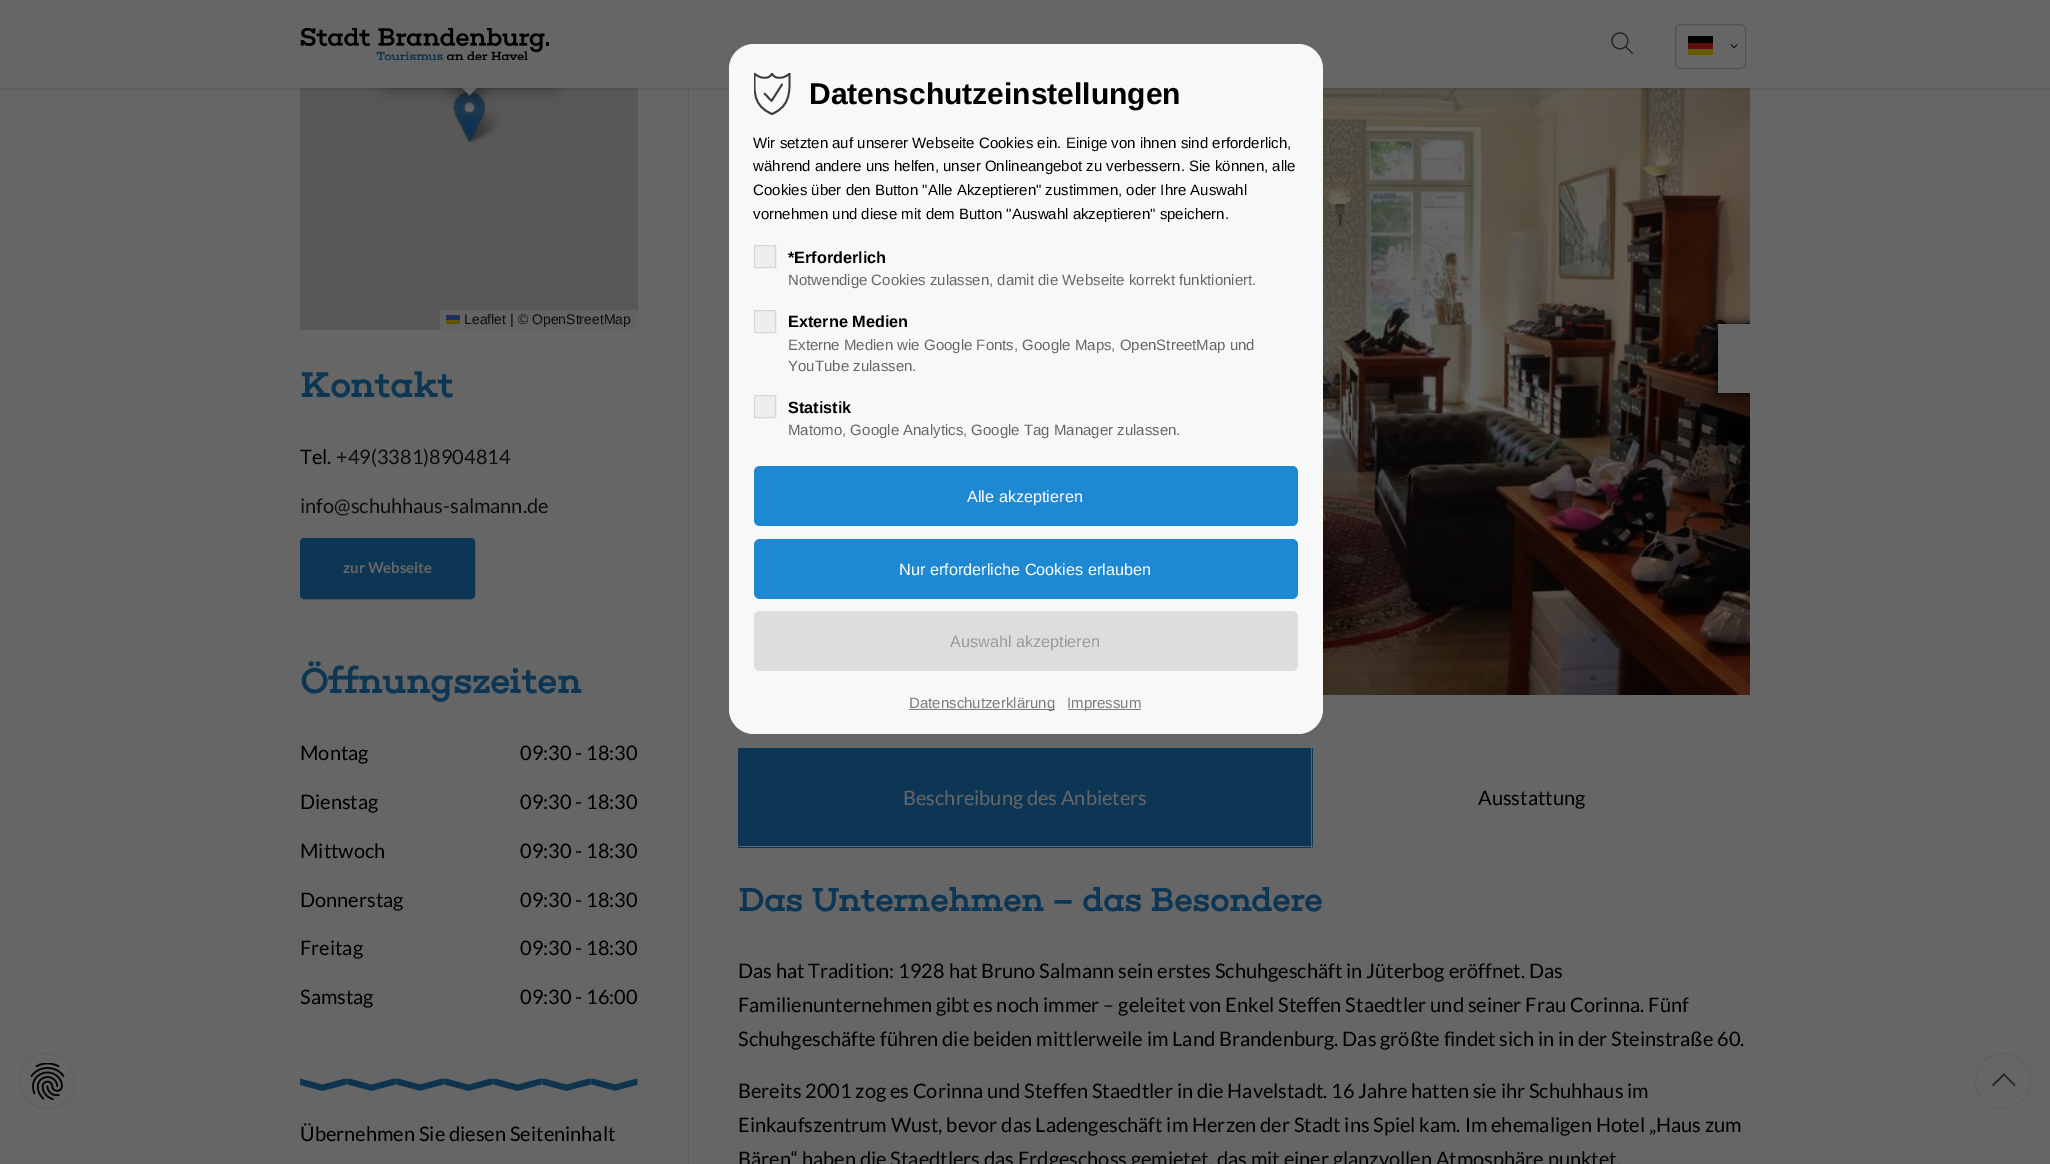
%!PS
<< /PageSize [2050 1164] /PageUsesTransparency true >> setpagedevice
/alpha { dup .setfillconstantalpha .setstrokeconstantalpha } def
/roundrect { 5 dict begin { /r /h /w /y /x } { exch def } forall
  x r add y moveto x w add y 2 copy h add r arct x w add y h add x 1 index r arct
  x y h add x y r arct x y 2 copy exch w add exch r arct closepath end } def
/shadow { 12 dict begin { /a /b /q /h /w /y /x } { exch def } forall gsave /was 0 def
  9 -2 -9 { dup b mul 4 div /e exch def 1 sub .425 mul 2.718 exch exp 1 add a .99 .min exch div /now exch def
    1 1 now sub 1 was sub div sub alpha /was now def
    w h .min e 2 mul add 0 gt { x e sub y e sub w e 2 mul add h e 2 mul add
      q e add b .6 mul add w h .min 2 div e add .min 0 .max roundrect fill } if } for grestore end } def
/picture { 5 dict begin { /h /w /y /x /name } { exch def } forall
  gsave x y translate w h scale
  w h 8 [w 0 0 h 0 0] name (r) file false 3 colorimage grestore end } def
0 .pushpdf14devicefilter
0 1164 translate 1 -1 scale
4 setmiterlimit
0.4 setgray
0 0 2050 1164 rectfill
0.345 setgray
300 88 338 242 rectfill
(img6.rgb) 465 107 37 36 picture
(img5.rgb) 453 91 33 52 picture
0 setgray
375 33 189 55 15 9 0.4 shadow
gsave
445 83 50 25 rectclip
459 74 21 21 0 9 0.4 shadow
grestore
0.4 setgray
newpath 469.5 65.5 moveto 484.5 80.5 lineto 469.5 95.5 lineto 454.5 80.5 lineto closepath fill
0.361 setgray
688 88 1 1076 rectfill
(img8.rgb) 1323 88 427 607 picture
0 setgray
-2 -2 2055 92 0 1 0.1 shadow
0.4 setgray
0 0 2050 88 rectfill
(img1.rgb) 300 28 249 32 picture
(img2.rgb) 1611 32 23 23 picture
0 0.004 0.004 setrgbcolor
1688 36 25 7 rectfill
0.361 0.059 0.051 setrgbcolor
1688 43 25 6 rectfill
0.4 0.361 0.016 setrgbcolor
1688 49 25 6 rectfill
0.322 setgray
1675.5 24.5 70 44 5.5 roundrect stroke
(img3.rgb) 1730 44 8 5 picture
0.973 setgray
729 44 594 690 25 roundrect fill
gsave
754 73 37 42 rectclip
0.231 0.235 0.255 setrgbcolor
1.8 setlinewidth
1 setlinecap
1 setlinejoin
newpath 772 114 moveto 752 105.5 754.5 90.5 754.5 73.5 curveto 758.5 78 769 80.5 772 73.5 curveto 775 80.5 785.5 78 789.5 73.5 curveto 789.5 90.5 791.5 105.5 772 114 curveto closepath stroke
grestore
0.231 0.235 0.255 setrgbcolor
1.8 setlinewidth
1 setlinecap
1 setlinejoin
newpath 764.5 93.5 moveto 771.5 101 lineto 782 84.5 lineto stroke
/LiberationSans-Bold [30 0 0 -30 0 0] selectfont
0 setgray
809 104 moveto (Datenschutzeinstellungen) show
/LiberationSans-Regular [15 0 0 -15 0 0] selectfont
753 148 moveto (Wir setzten auf unserer Webseite Cookies ein. Einige von ihnen sind erforderlich,) show
753 171 moveto (während andere uns helfen, unser Onlineangebot zu verbessern. Sie können, alle) show
753 195 moveto (Cookies über den Button "Alle Akzeptieren" zustimmen, oder Ihre Auswahl) show
753 219 moveto (vornehmen und diese mit dem Button "Auswahl akzeptieren" speichern.) show
0.933 setgray
newpath 754.5 245.5 moveto 775.5 245.5 lineto 775.5 267.5 lineto 754.5 267.5 lineto closepath gsave fill grestore
0.839 setgray
1 setlinewidth
0 setlinecap
0 setlinejoin
stroke
/LiberationSans-Bold [16.25 0 0 -16.25 0 0] selectfont
0 setgray
788 263 moveto (*Erforderlich) show
/LiberationSans-Regular [15 0 0 -15 0 0] selectfont
0.4 setgray
788 285 moveto (Notwendige Cookies zulassen, damit die Webseite korrekt funktioniert.) show
0.933 setgray
newpath 754.5 310.5 moveto 775.5 310.5 lineto 775.5 332.5 lineto 754.5 332.5 lineto closepath gsave fill grestore
0.839 setgray
stroke
/LiberationSans-Bold [16.25 0 0 -16.25 0 0] selectfont
0 setgray
788 327 moveto (Externe Medien) show
/LiberationSans-Regular [15 0 0 -15 0 0] selectfont
0.4 setgray
788 350 moveto (Externe Medien wie Google Fonts, Google Maps, OpenStreetMap und) show
788 371 moveto (YouTube zulassen.) show
0.933 setgray
newpath 754.5 395.5 moveto 775.5 395.5 lineto 775.5 417.5 lineto 754.5 417.5 lineto closepath gsave fill grestore
0.839 setgray
stroke
/LiberationSans-Bold [16.25 0 0 -16.25 0 0] selectfont
0 setgray
788 413 moveto (Statistik) show
/LiberationSans-Regular [15 0 0 -15 0 0] selectfont
0.4 setgray
788 435 moveto (Matomo, Google Analytics, Google Tag Manager zulassen.) show
0.118 0.533 0.824 setrgbcolor
754 466 544 60 6 roundrect fill
/LiberationSans-Regular [16.25 0 0 -16.25 0 0] selectfont
1 setgray
967 502 moveto (Alle akzeptieren) show
0.118 0.533 0.824 setrgbcolor
754 539 544 60 6 roundrect fill
1 setgray
899 575 moveto (Nur erforderliche Cookies erlauben) show
0.867 setgray
754 611 544 60 6 roundrect fill
0.604 setgray
950 647 moveto (Auswahl akzeptieren) show
0.486 setgray
909 709 146 1 rectfill
/LiberationSans-Regular [15 0 0 -15 0 0] selectfont
909 708 moveto (Datenschutzerklärung) show
1068 709 73 1 rectfill
1067 708 moveto (Impressum) show
(img4.rgb) 30 1063 35 37 picture
0.369 0.373 0.369 setrgbcolor
newpath 47 1081 27.5 0 360 arc closepath stroke
0.388 setgray
440 310 198 20 rectfill
/LiberationSans-Regular [14 0 0 -14 0 0] selectfont
0.055 setgray
464 324 moveto (Leaflet) show
0.118 0.192 0.353 setrgbcolor
446 315 14 5 rectfill
0.4 0.333 0 setrgbcolor
446 320 14 3 rectfill
0.353 0.294 0 setrgbcolor
446 323 14 1 rectfill
0.078 setgray
510 324 moveto (| ©) show
0.055 setgray
532 324 moveto (OpenStreetMap) show
/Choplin-Bold [35 0 0 -35 0 0] selectfont
0.047 0.212 0.329 setrgbcolor
300 397 moveto (Kontakt) show
0.388 setgray
300 480 338 1 rectfill
/Lato-Regular [20 0 0 -20 0 0] selectfont
0 setgray
300 464 moveto (Tel.) show
0.055 setgray
336 464 moveto (+49\(3381\)8904814) show
0.388 setgray
300 529 338 1 rectfill
0.055 setgray
300 513 moveto (info@schuhhaus-salmann.de) show
0.388 setgray
300 624 338 1 rectfill
0.047 0.212 0.329 setrgbcolor
301.5 539.5 172 58 2.5 roundrect gsave fill grestore
3 setlinewidth
stroke
/Lato-Bold [15 0 0 -15 0 0] selectfont
0.4 setgray
343 573 moveto (zur Webseite) show
/Choplin-Bold [35 0 0 -35 0 0] selectfont
0.047 0.212 0.329 setrgbcolor
300 693 moveto (Öffnungszeiten) show
0.388 setgray
300 775 338 1 rectfill
/Lato-Regular [20 0 0 -20 0 0] selectfont
0 setgray
300 760 moveto (Montag) show
520 760 moveto (09:30 - 18:30) show
0.388 setgray
300 824 338 1 rectfill
0 setgray
300 809 moveto (Dienstag) show
520 809 moveto (09:30 - 18:30) show
0.388 setgray
300 874 338 1 rectfill
0 setgray
300 858 moveto (Mittwoch) show
520 858 moveto (09:30 - 18:30) show
0.388 setgray
300 923 338 1 rectfill
0 setgray
300 907 moveto (Donnerstag) show
520 907 moveto (09:30 - 18:30) show
0.388 setgray
300 971 338 1 rectfill
0 setgray
300 955 moveto (Freitag) show
520 955 moveto (09:30 - 18:30) show
0.388 setgray
300 1020 338 1 rectfill
0 setgray
300 1004 moveto (Samstag) show
520 1004 moveto (09:30 - 16:00) show
(img7.rgb) 300 1078 338 13 picture
300 1141 moveto (Übernehmen Sie diesen Seiteninhalt) show
gsave
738 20 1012 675 rectclip
1718 324 32 69 0 6 1 shadow
grestore
0.4 setgray
1718 324 32 69 rectfill
0.047 0.212 0.329 setrgbcolor
738 748 575 100 rectfill
0.388 setgray
1311 748 1 100 rectfill
738 846 1012 1 rectfill
0.4 setgray
903 805 moveto (Beschreibung des Anbieters) show
0 setgray
1478 805 moveto (Ausstattung) show
/Choplin-Bold [32.5 0 0 -32.5 0 0] selectfont
0.047 0.212 0.329 setrgbcolor
738 911 moveto (Das Unternehmen – das Besondere) show
/Lato-Regular [20 0 0 -20 0 0] selectfont
0 setgray
738 978 moveto (Das hat Tradition: 1928 hat Bruno Salmann sein erstes Schuhgeschäft in Jüterbog eröffnet. Das) show
738 1012 moveto (Familienunternehmen gibt es noch immer – geleitet von Enkel Steffen Staedtler und seiner Frau Corinna. Fünf) show
738 1046 moveto (Schuhgeschäfte führen die beiden mittlerweile im Land Brandenburg. Das größte findet sich in in der Steinstraße 60.) show
738 1098 moveto (Bereits 2001 zog es Corinna und Steffen Staedtler in die Havelstadt. 16 Jahre hatten sie ihr Schuhhaus im) show
738 1132 moveto (Einkaufszentrum Wust, bevor das Ladengeschäft im Herzen der Stadt ins Spiel kam. Im ehemaligen Hotel „Haus zum) show
738 1166 moveto (Bären“ haben die Staedtlers das Erdgeschoss gemietet, das mit einer glanzvollen Atmosphäre punktet.) show
0.369 0.373 0.369 setrgbcolor
1 setlinewidth
newpath 2003 1081 27.5 0 360 arc closepath stroke
0.133 setgray
newpath 2015.5 1085 moveto 2014.5 1086 lineto 2004 1075.5 lineto 1993.5 1086 lineto 1992 1085 lineto 2004 1073.5 lineto closepath fill
.poppdf14devicefilter showpage
